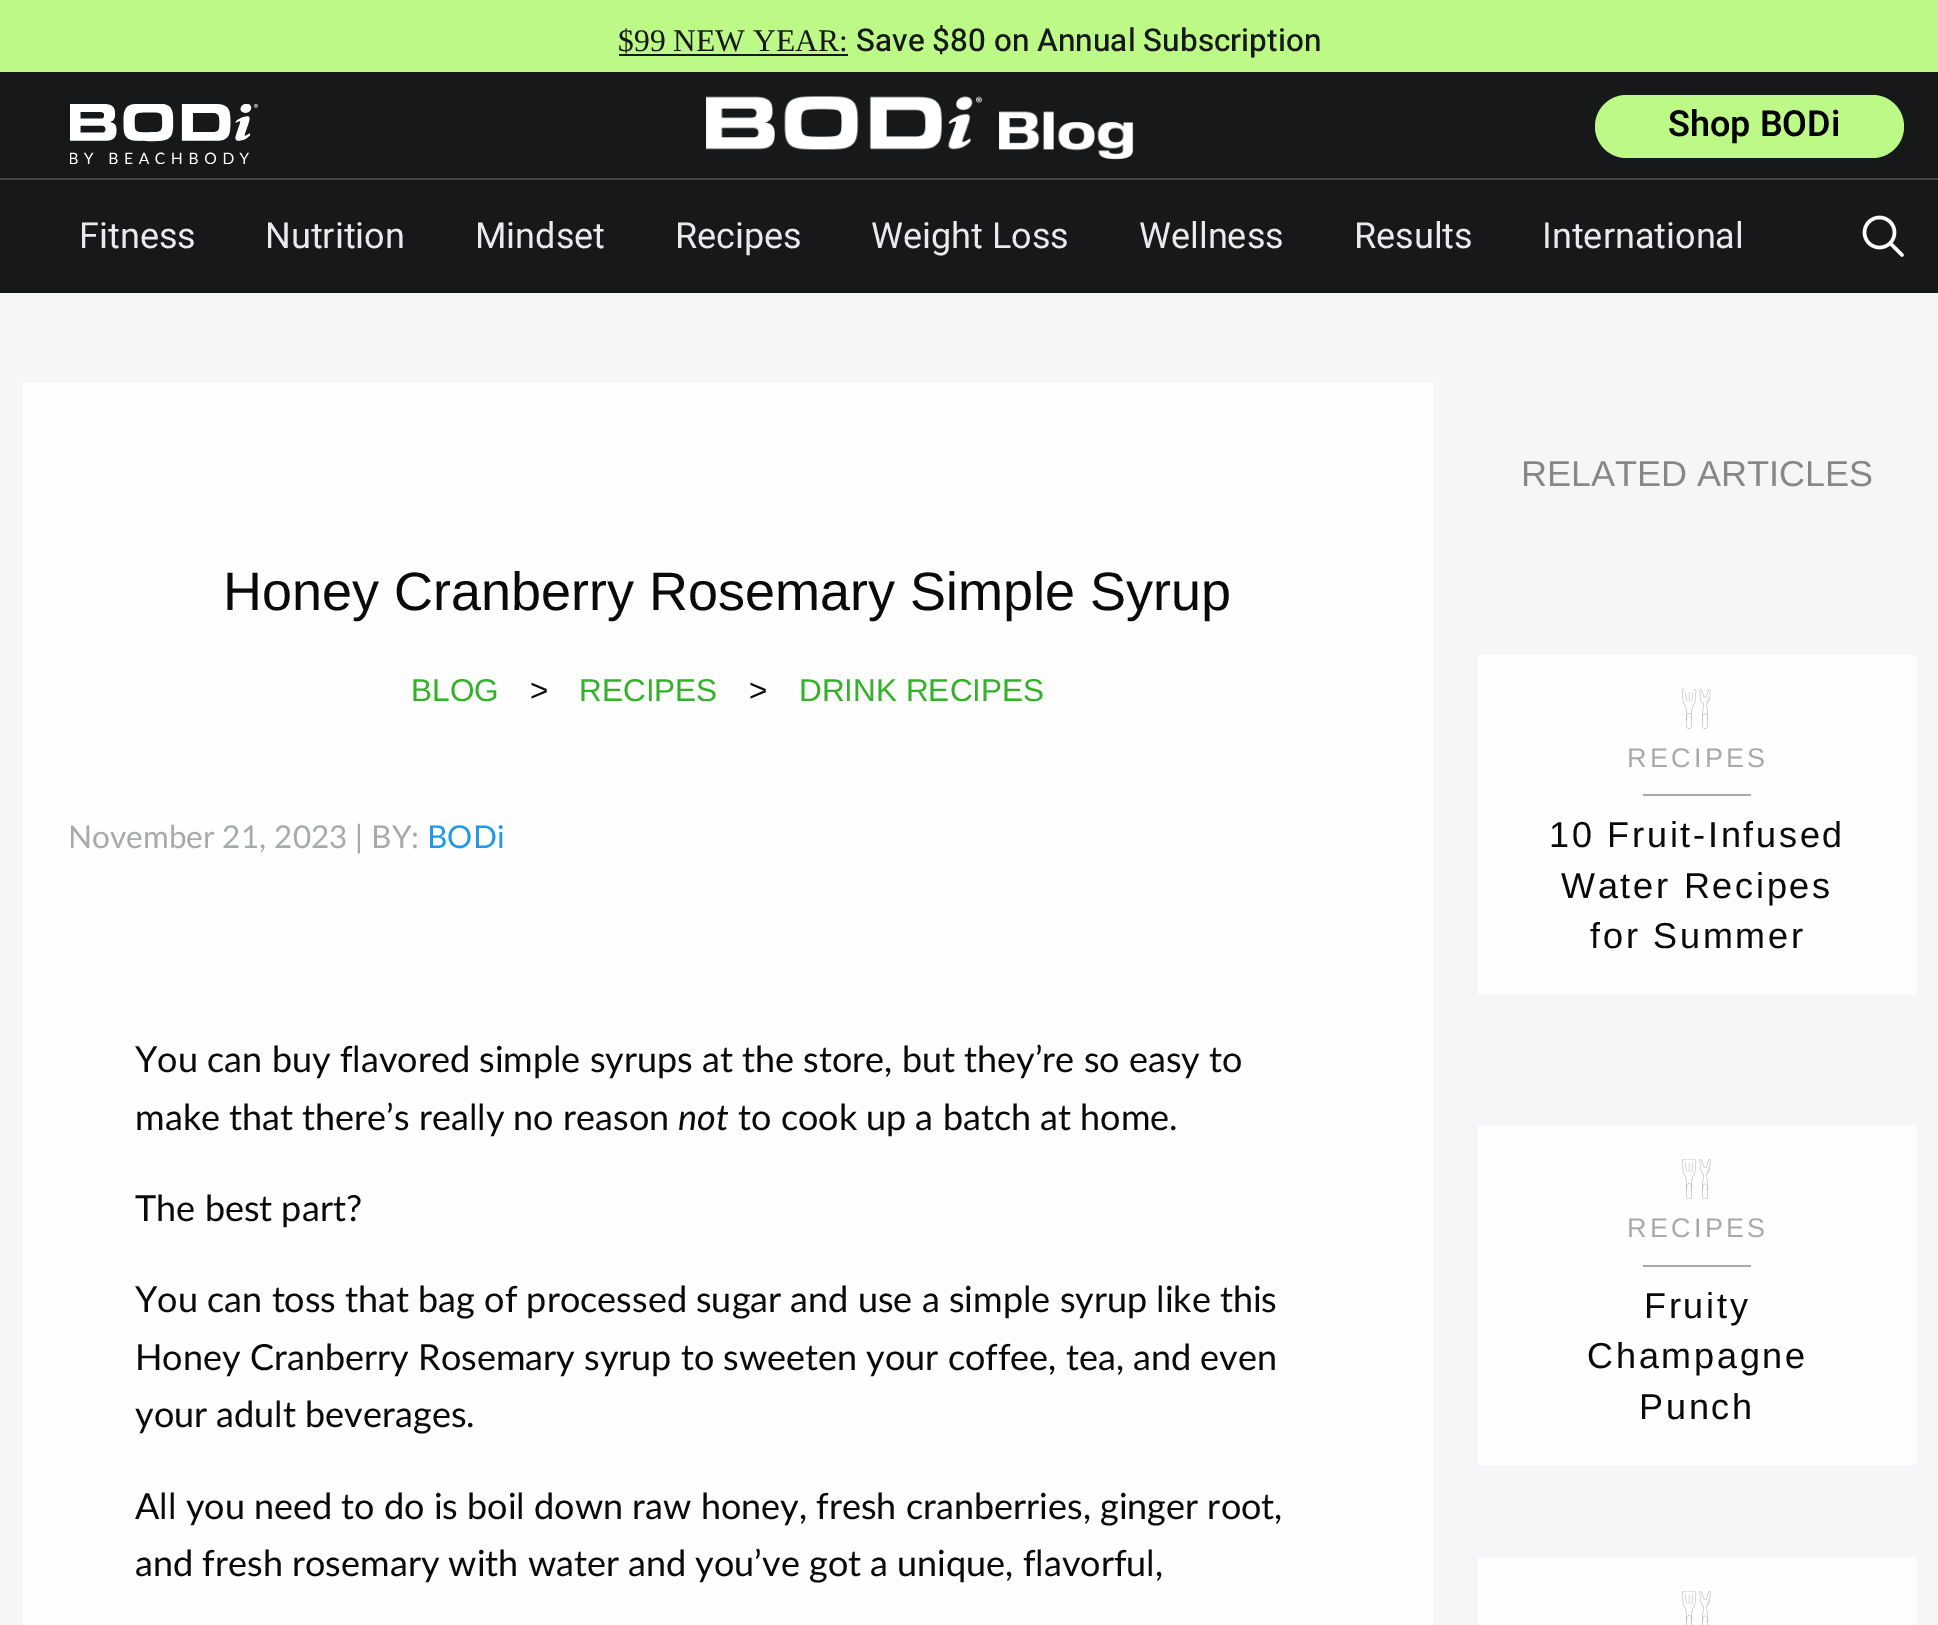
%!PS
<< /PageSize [1938 1625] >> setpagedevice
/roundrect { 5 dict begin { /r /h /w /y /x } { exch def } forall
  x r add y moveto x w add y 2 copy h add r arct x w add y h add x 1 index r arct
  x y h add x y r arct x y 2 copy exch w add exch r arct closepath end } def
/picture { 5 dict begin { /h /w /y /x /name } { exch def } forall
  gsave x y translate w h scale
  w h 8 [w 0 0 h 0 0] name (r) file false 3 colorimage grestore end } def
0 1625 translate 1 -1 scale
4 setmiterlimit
0.965 0.965 0.976 setrgbcolor
0 0 1938 1625 rectfill
0.737 0.976 0.525 setrgbcolor
0 0 1938 72 rectfill
/LiberationSerif-Regular [31.5 0 0 -31.5 0 0] selectfont
0.086 0.094 0.098 setrgbcolor
618 51 moveto 0.05 0 ($99 NEW YEAR:) ashow
619 54 229 2 rectfill
/Heebo-Medium [31.5 0 0 -31.5 0 0] selectfont
856 51 moveto 0.05 0 (Save $80 on Annual Subscription) ashow
0 72 1938 106 rectfill
0.267 0.275 0.275 setrgbcolor
0 178 1938 2 rectfill
(img1.rgb) 70 104 188 60 picture
(img2.rgb) 706 96 428 64 picture
0.737 0.976 0.525 setrgbcolor
1595 95 309 63 31.5 roundrect fill
/Heebo-SemiBold [36 0 0 -36 0 0] selectfont
0 setgray
1668 136 moveto (Shop BODi) show
0.086 0.094 0.098 setrgbcolor
0 180 1938 113 rectfill
/Heebo-Regular [36 0 0 -36 0 0] selectfont
0.91 0.918 0.933 setrgbcolor
79 248 moveto (Fitness) show
265 248 moveto (Nutrition) show
475 248 moveto (Mindset) show
675 248 moveto (Recipes) show
871 248 moveto (Weight Loss) show
1139 248 moveto (Wellness) show
1354 248 moveto (Results) show
1542 248 moveto (International) show
(img3.rgb) 1862 215 42 42 picture
0.996 setgray
23 383 1410 1242 rectfill
/LiberationSans-Regular [54 0 0 -54 0 0] selectfont
0.039 setgray
223 610 moveto (Honey Cranberry Rosemary Simple Syrup) show
/LiberationSans-Regular [31.5 0 0 -31.5 0 0] selectfont
0.196 0.698 0.157 setrgbcolor
411 701 moveto (BLOG) show
0.039 setgray
530 701 moveto (>) show
0.196 0.698 0.157 setrgbcolor
579 701 moveto (RECIPES) show
0.039 setgray
749 701 moveto (>) show
0.196 0.698 0.157 setrgbcolor
799 701 moveto (DRINK RECIPES) show
/Lato-Regular [31.5 0 0 -31.5 0 0] selectfont
0.655 0.663 0.675 setrgbcolor
68 848 moveto (November 21, 2023 | BY:) show
0.129 0.6 0.91 setrgbcolor
427 848 moveto (BODi) show
/Lato-Regular [36 0 0 -36 0 0] selectfont
0.039 setgray
135 1072 moveto (You can buy flavored simple syrups at the store, but they’re so easy to) show
135 1130 moveto (make that there’s really no reason) show
/Lato-Italic [36 0 0 -36 0 0] selectfont
678 1130 moveto (not) show
/Lato-Regular [36 0 0 -36 0 0] selectfont
738 1130 moveto (to cook up a batch at home.) show
135 1221 moveto (The best part?) show
135 1312 moveto (You can toss that bag of processed sugar and use a simple syrup like this) show
135 1370 moveto (Honey Cranberry Rosemary syrup to sweeten your coffee, tea, and even) show
135 1427 moveto (your adult beverages.) show
135 1519 moveto (All you need to do is boil down raw honey, fresh cranberries, ginger root,) show
135 1576 moveto (and fresh rosemary with water and you’ve got a unique, flavorful,) show
/LiberationSans-Regular [36 0 0 -36 0 0] selectfont
0.529 setgray
1521 486 moveto (RELATED ARTICLES) show
0.996 setgray
1478 655 439 340 rectfill
(img4.rgb) 1682 689 29 40 picture
/LiberationSans-Regular [27 0 0 -27 0 0] selectfont
0.655 0.663 0.675 setrgbcolor
1627 767 moveto 3.25 0 (RECIPES) ashow
1643 794 108 2 rectfill
/LiberationSans-Regular [36 0 0 -36 0 0] selectfont
0.039 setgray
1549 847 moveto 2.75 0 (10 Fruit-Infused) ashow
1561 898 moveto 2.75 0 (Water Recipes) ashow
1590 948 moveto 2.75 0 (for Summer) ashow
0.996 setgray
1478 1125 439 340 rectfill
(img5.rgb) 1682 1159 29 40 picture
/LiberationSans-Regular [27 0 0 -27 0 0] selectfont
0.655 0.663 0.675 setrgbcolor
1627 1237 moveto 3.25 0 (RECIPES) ashow
1643 1265 108 2 rectfill
/LiberationSans-Regular [36 0 0 -36 0 0] selectfont
0.039 setgray
1644 1318 moveto 2.75 0 (Fruity) ashow
1587 1368 moveto 2.75 0 (Champagne) ashow
1639 1419 moveto 2.75 0 (Punch) ashow
0.996 setgray
1478 1557 439 68 rectfill
(img6.rgb) 1682 1591 29 34 picture
showpage
